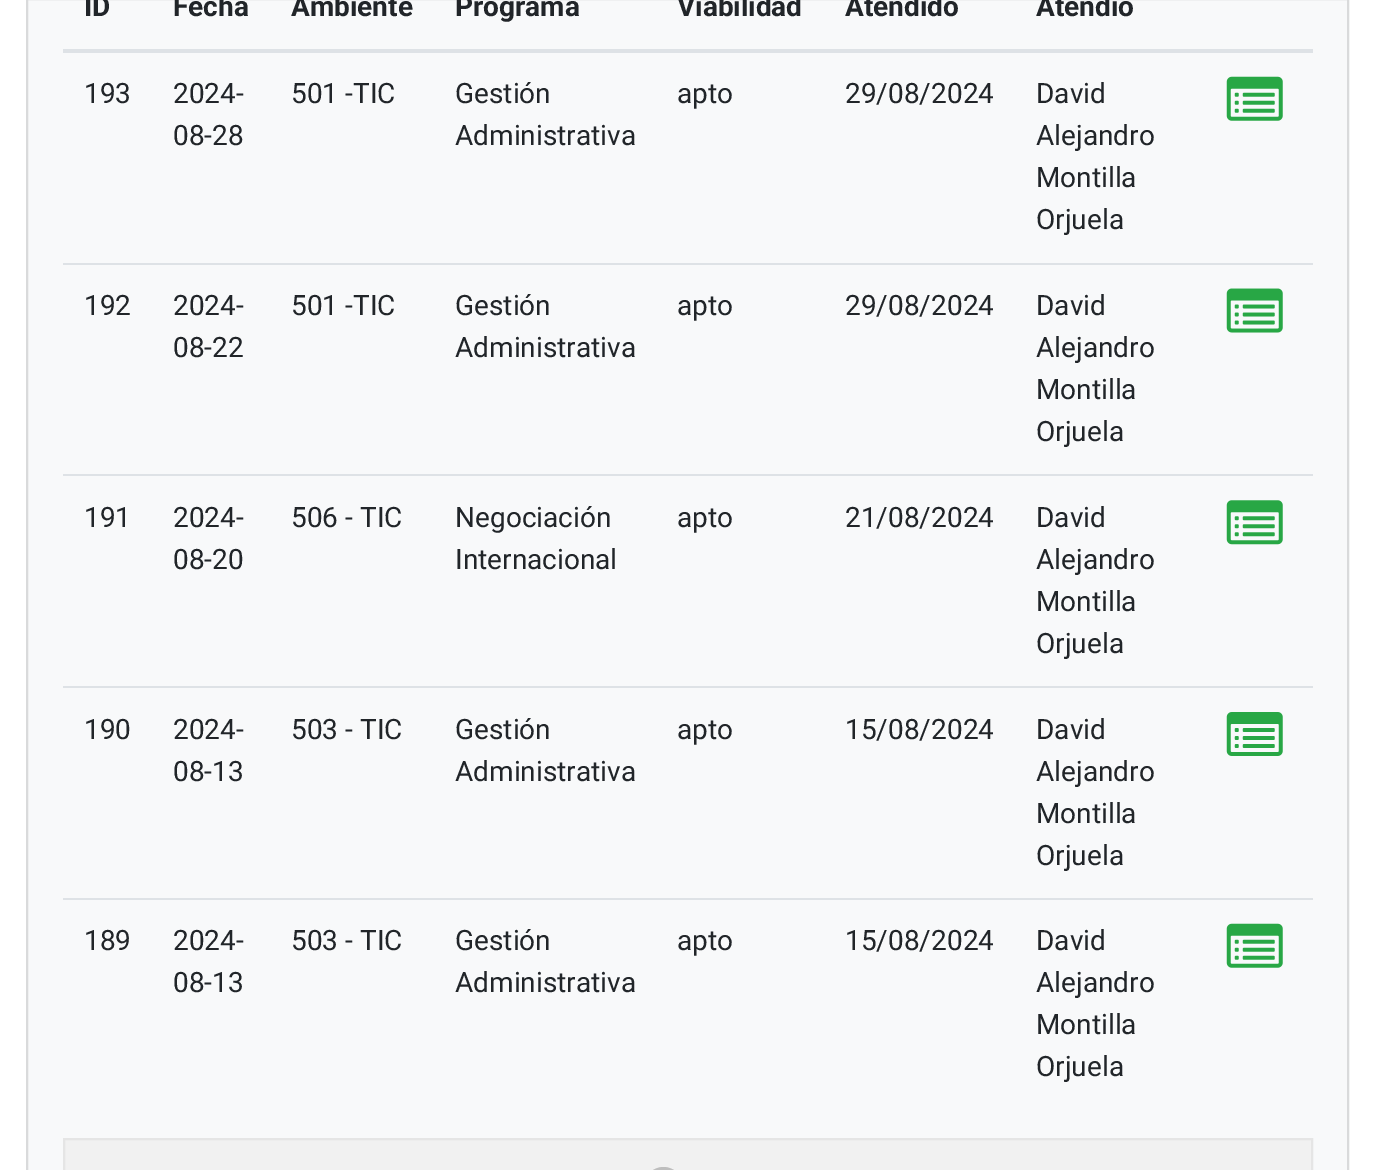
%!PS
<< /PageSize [1375 1170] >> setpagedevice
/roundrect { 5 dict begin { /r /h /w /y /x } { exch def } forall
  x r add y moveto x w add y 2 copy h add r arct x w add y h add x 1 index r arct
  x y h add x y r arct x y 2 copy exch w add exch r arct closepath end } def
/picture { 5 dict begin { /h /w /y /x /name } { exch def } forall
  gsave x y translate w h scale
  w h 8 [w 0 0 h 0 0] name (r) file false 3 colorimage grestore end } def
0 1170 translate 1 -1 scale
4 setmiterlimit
1 setgray
0 0 1375 1170 rectfill
0.973 0.976 0.98 setrgbcolor
newpath 27 -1 moveto 1348 -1 lineto 1348 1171 lineto 27 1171 lineto closepath gsave fill grestore
0.851 0.855 0.859 setrgbcolor
2 setlinewidth
stroke
/Roboto-Bold [28 0 0 -28 0 0] selectfont
0.129 0.145 0.161 setrgbcolor
84 16 moveto (ID) show
173 16 moveto (Fecha) show
291 16 moveto (Ambiente) show
455 16 moveto (Programa) show
677 16 moveto (Viabilidad) show
845 16 moveto (Atendido) show
1036 16 moveto (Atendió) show
0.871 0.886 0.902 setrgbcolor
63 49 1250 4 rectfill
/Roboto-Regular [28 0 0 -28 0 0] selectfont
0.129 0.145 0.161 setrgbcolor
84 103 moveto (193) show
173 103 moveto (2024-) show
173 145 moveto (08-28) show
291 103 moveto (501 -TIC) show
455 103 moveto (Gestión) show
455 145 moveto (Administrativa) show
677 103 moveto (apto) show
845 103 moveto (29/08/2024) show
1036 103 moveto (David) show
1036 145 moveto (Alejandro) show
1036 187 moveto (Montilla) show
1036 229 moveto (Orjuela) show
(img1.rgb) 1226 76 57 45 picture
0.871 0.886 0.902 setrgbcolor
63 263 1250 2 rectfill
0.129 0.145 0.161 setrgbcolor
84 315 moveto (192) show
173 315 moveto (2024-) show
173 357 moveto (08-22) show
291 315 moveto (501 -TIC) show
455 315 moveto (Gestión) show
455 357 moveto (Administrativa) show
677 315 moveto (apto) show
845 315 moveto (29/08/2024) show
1036 315 moveto (David) show
1036 357 moveto (Alejandro) show
1036 399 moveto (Montilla) show
1036 441 moveto (Orjuela) show
(img2.rgb) 1226 288 57 45 picture
0.871 0.886 0.902 setrgbcolor
63 474 1250 2 rectfill
0.129 0.145 0.161 setrgbcolor
84 527 moveto (191) show
173 527 moveto (2024-) show
173 569 moveto (08-20) show
291 527 moveto (506 - TIC) show
455 527 moveto (Negociación) show
455 569 moveto (Internacional) show
677 527 moveto (apto) show
845 527 moveto (21/08/2024) show
1036 527 moveto (David) show
1036 569 moveto (Alejandro) show
1036 611 moveto (Montilla) show
1036 653 moveto (Orjuela) show
(img3.rgb) 1226 500 57 45 picture
0.871 0.886 0.902 setrgbcolor
63 686 1250 2 rectfill
0.129 0.145 0.161 setrgbcolor
84 739 moveto (190) show
173 739 moveto (2024-) show
173 781 moveto (08-13) show
291 739 moveto (503 - TIC) show
455 739 moveto (Gestión) show
455 781 moveto (Administrativa) show
677 739 moveto (apto) show
845 739 moveto (15/08/2024) show
1036 739 moveto (David) show
1036 781 moveto (Alejandro) show
1036 823 moveto (Montilla) show
1036 865 moveto (Orjuela) show
(img4.rgb) 1226 712 57 44 picture
0.871 0.886 0.902 setrgbcolor
63 898 1250 2 rectfill
0.129 0.145 0.161 setrgbcolor
84 950 moveto (189) show
173 950 moveto (2024-) show
173 992 moveto (08-13) show
291 950 moveto (503 - TIC) show
455 950 moveto (Gestión) show
455 992 moveto (Administrativa) show
677 950 moveto (apto) show
845 950 moveto (15/08/2024) show
1036 950 moveto (David) show
1036 992 moveto (Alejandro) show
1036 1034 moveto (Montilla) show
1036 1076 moveto (Orjuela) show
(img1.rgb) 1226 923 57 45 picture
0.945 setgray
newpath 64 1139 moveto 1312 1139 lineto 1312 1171 lineto 64 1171 lineto closepath gsave fill grestore
0.898 setgray
stroke
0.745 setgray
644 1167 39 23 19.5 roundrect fill
showpage
